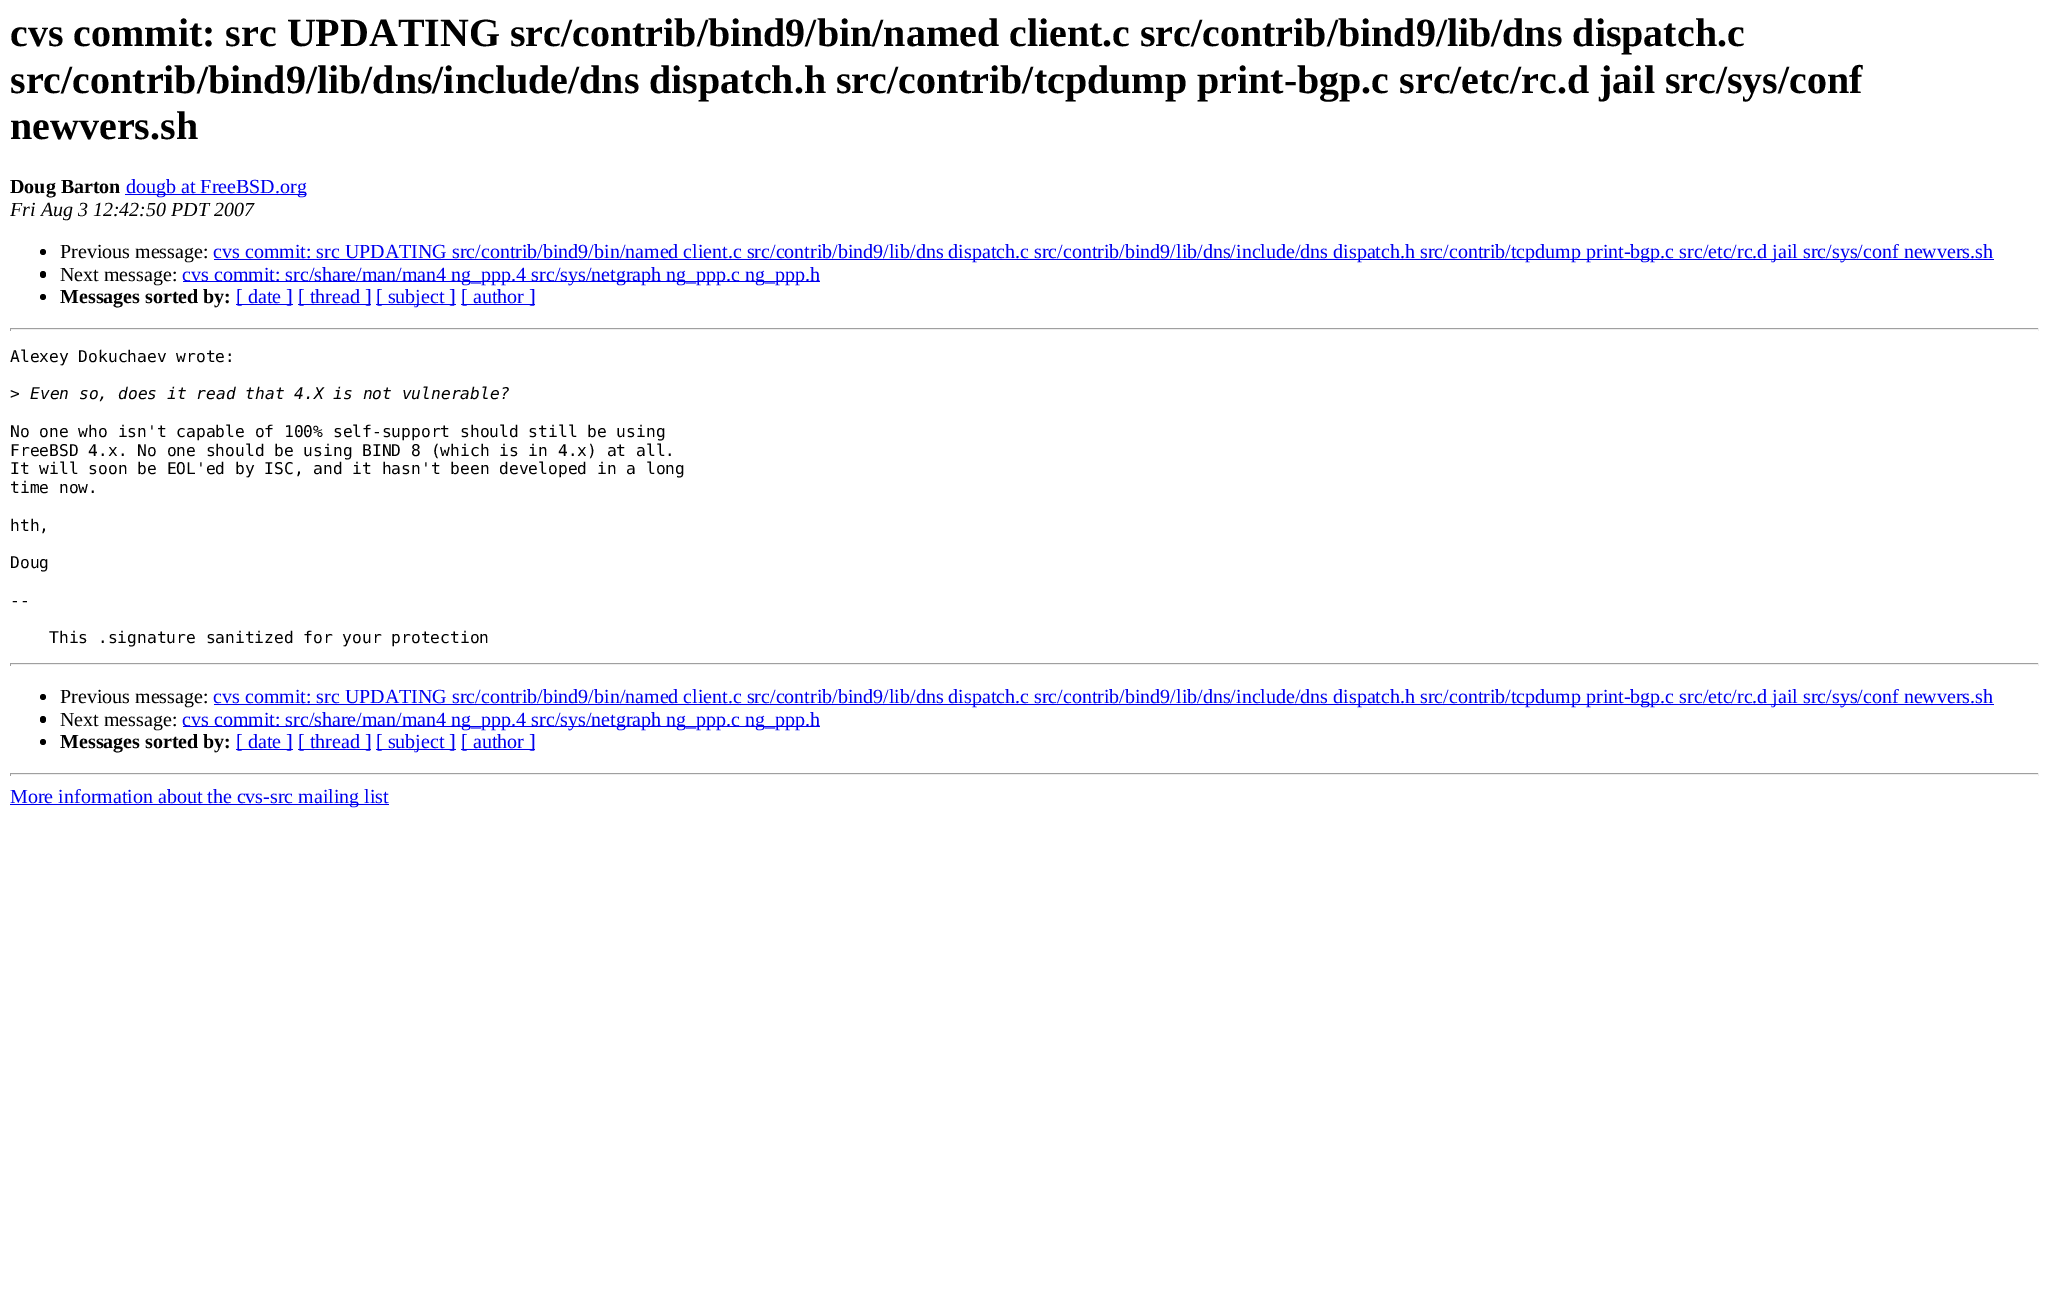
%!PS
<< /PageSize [2048 1308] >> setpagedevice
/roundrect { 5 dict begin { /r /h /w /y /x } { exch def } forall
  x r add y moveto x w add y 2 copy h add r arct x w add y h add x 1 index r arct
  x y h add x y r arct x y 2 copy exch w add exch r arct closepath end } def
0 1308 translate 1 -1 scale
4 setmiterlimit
1 setgray
0 0 2048 1308 rectfill
/LiberationSerif-Bold [40 0 0 -40 0 0] selectfont
0 setgray
10 46 moveto (cvs commit: src UPDATING src/contrib/bind9/bin/named client.c src/contrib/bind9/lib/dns dispatch.c) show
10 93 moveto (src/contrib/bind9/lib/dns/include/dns dispatch.h src/contrib/tcpdump print-bgp.c src/etc/rc.d jail src/sys/conf) show
10 139 moveto (newvers.sh) show
/LiberationSerif-Bold [20 0 0 -20 0 0] selectfont
10 193 moveto (Doug Barton) show
0 0 0.933 setrgbcolor
125 194 181 1 rectfill
/LiberationSerif-Regular [20 0 0 -20 0 0] selectfont
126 193 moveto (dougb at FreeBSD.org) show
/LiberationSerif-Italic [20 0 0 -20 0 0] selectfont
0 setgray
10 216 moveto (Fri Aug 3 12:42:50 PDT 2007) show
newpath 43 252 3 0 360 arc closepath fill
/LiberationSerif-Regular [20 0 0 -20 0 0] selectfont
60 258 moveto (Previous message:) show
0 0 0.933 setrgbcolor
214 259 1780 1 rectfill
213 258 moveto (cvs commit: src UPDATING src/contrib/bind9/bin/named client.c src/contrib/bind9/lib/dns dispatch.c src/contrib/bind9/lib/dns/include/dns dispatch.h src/contrib/tcpdump print-bgp.c src/etc/rc.d jail src/sys/conf newvers.sh) show
0 setgray
40 271 6 7 3 roundrect fill
60 281 moveto (Next message:) show
0 0 0.933 setrgbcolor
183 281 637 1 rectfill
182 281 moveto (cvs commit: src/share/man/man4 ng_ppp.4 src/sys/netgraph ng_ppp.c ng_ppp.h) show
0 setgray
newpath 43 297 3 0 360 arc closepath fill
/LiberationSerif-Bold [20 0 0 -20 0 0] selectfont
60 303 moveto (Messages sorted by:) show
0 0 0.933 setrgbcolor
236 304 57 1 rectfill
/LiberationSerif-Regular [20 0 0 -20 0 0] selectfont
236 303 moveto ([ date ]) show
298 304 73 1 rectfill
298 303 moveto ([ thread ]) show
376 304 80 1 rectfill
376 303 moveto ([ subject ]) show
461 304 74 1 rectfill
461 303 moveto ([ author ]) show
0.624 setgray
10 328 2029 1 rectfill
0.933 setgray
2038 328 1 3 rectfill
10 329 2029 1 rectfill
0.624 setgray
10 328 1 3 rectfill
/DejaVuSansMono-Regular [16.25 0 0 -16.25 0 0] selectfont
0 setgray
10 362 moveto (Alexey Dokuchaev wrote:) show
10 399 moveto (>) show
/DejaVuSansMono-Italic [16.25 0 0 -16.25 0 0] selectfont
30 399 moveto (Even so, does it read that 4.X is not vulnerable?) show
/DejaVuSansMono-Regular [16.25 0 0 -16.25 0 0] selectfont
10 437 moveto (No one who isn't capable of 100% self-support should still be using) show
10 456 moveto (FreeBSD 4.x. No one should be using BIND 8 \(which is in 4.x\) at all.) show
10 474 moveto (It will soon be EOL'ed by ISC, and it hasn't been developed in a long) show
10 493 moveto (time now.) show
10 531 moveto (hth,) show
10 568 moveto (Doug) show
10 606 moveto (--) show
49 643 moveto (This .signature sanitized for your protection) show
0.624 setgray
10 663 2029 1 rectfill
0.933 setgray
2038 663 1 3 rectfill
10 664 2029 1 rectfill
0.624 setgray
10 663 1 3 rectfill
0 setgray
newpath 43 697 3 0 360 arc closepath fill
/LiberationSerif-Regular [20 0 0 -20 0 0] selectfont
60 703 moveto (Previous message:) show
0 0 0.933 setrgbcolor
214 704 1780 1 rectfill
213 703 moveto (cvs commit: src UPDATING src/contrib/bind9/bin/named client.c src/contrib/bind9/lib/dns dispatch.c src/contrib/bind9/lib/dns/include/dns dispatch.h src/contrib/tcpdump print-bgp.c src/etc/rc.d jail src/sys/conf newvers.sh) show
0 setgray
40 716 6 7 3 roundrect fill
60 726 moveto (Next message:) show
0 0 0.933 setrgbcolor
183 726 637 1 rectfill
182 726 moveto (cvs commit: src/share/man/man4 ng_ppp.4 src/sys/netgraph ng_ppp.c ng_ppp.h) show
0 setgray
newpath 43 742 3 0 360 arc closepath fill
/LiberationSerif-Bold [20 0 0 -20 0 0] selectfont
60 748 moveto (Messages sorted by:) show
0 0 0.933 setrgbcolor
236 749 57 1 rectfill
/LiberationSerif-Regular [20 0 0 -20 0 0] selectfont
236 748 moveto ([ date ]) show
298 749 73 1 rectfill
298 748 moveto ([ thread ]) show
376 749 80 1 rectfill
376 748 moveto ([ subject ]) show
461 749 74 1 rectfill
461 748 moveto ([ author ]) show
0.624 setgray
10 773 2029 1 rectfill
0.933 setgray
2038 773 1 3 rectfill
10 774 2029 1 rectfill
0.624 setgray
10 773 1 3 rectfill
0 0 0.933 setrgbcolor
10 804 379 1 rectfill
10 803 moveto (More information about the cvs-src mailing list) show
showpage
